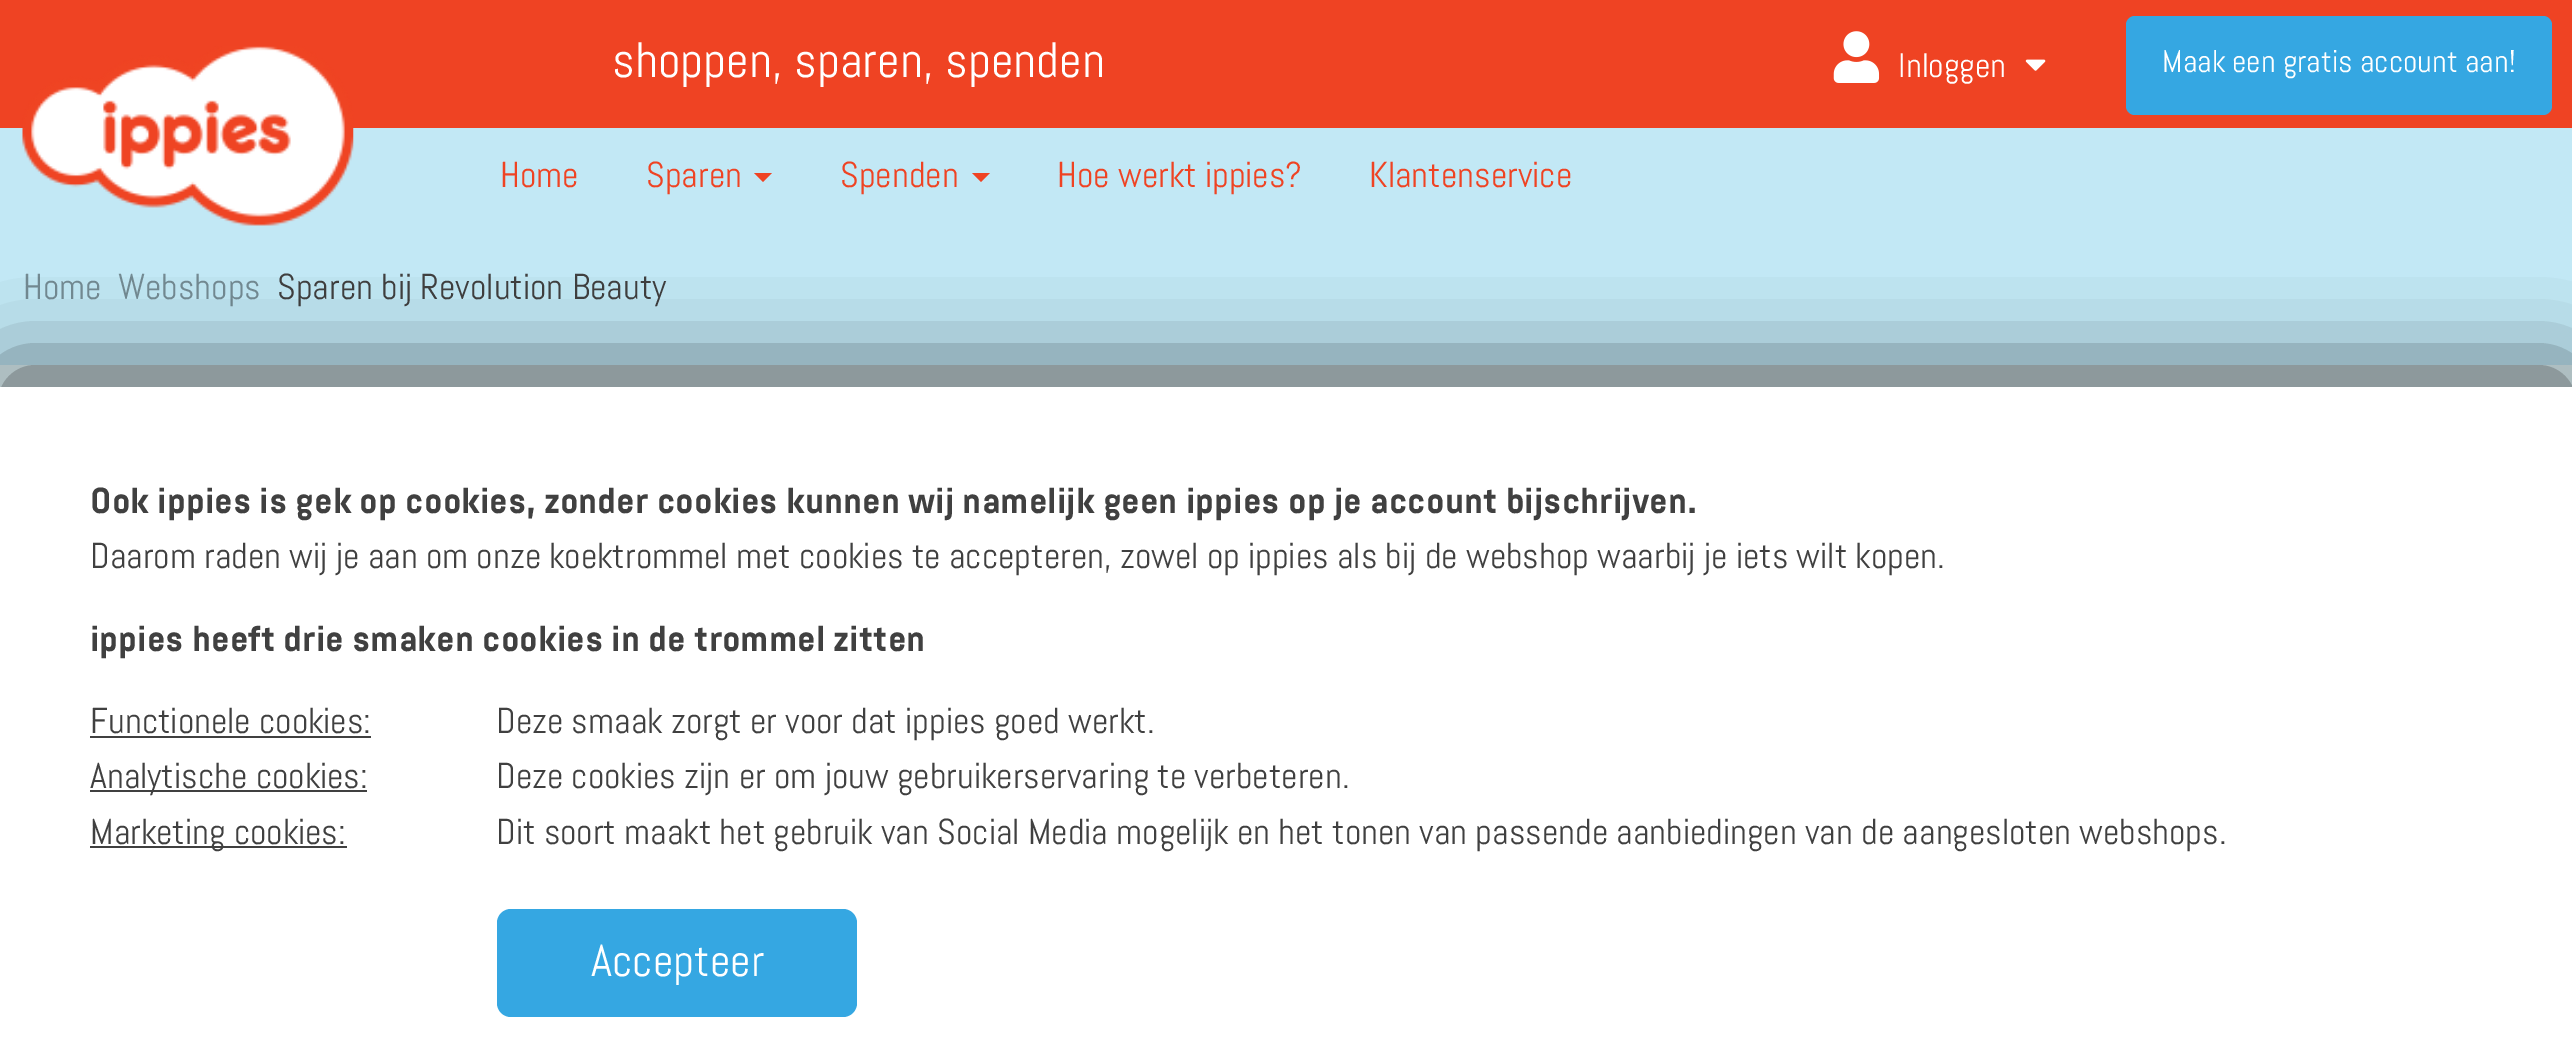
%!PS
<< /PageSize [2572 1049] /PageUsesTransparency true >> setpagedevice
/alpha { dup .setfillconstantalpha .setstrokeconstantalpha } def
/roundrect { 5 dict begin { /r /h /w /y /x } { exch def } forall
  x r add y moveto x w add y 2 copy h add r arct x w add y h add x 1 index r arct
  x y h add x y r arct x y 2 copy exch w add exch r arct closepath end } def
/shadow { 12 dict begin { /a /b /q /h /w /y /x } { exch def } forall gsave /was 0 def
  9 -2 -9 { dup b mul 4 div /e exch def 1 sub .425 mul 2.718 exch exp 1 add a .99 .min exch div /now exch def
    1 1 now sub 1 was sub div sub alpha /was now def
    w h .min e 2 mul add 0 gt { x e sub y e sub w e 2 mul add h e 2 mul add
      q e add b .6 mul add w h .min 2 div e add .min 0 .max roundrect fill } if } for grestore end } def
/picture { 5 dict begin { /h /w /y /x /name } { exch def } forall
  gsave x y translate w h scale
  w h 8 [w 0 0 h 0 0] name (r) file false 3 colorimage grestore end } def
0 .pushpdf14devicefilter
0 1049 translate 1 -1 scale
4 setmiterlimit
0.878 0.957 0.98 setrgbcolor
0 0 2572 1049 rectfill
0.761 0.91 0.961 setrgbcolor
0 128 2572 237 rectfill
0.937 0.263 0.137 setrgbcolor
0 0 2572 128 rectfill
/Abel-Regular [49.5 0 0 -49.5 0 0] selectfont
1 setgray
612 77 moveto (shoppen, sparen, spenden) show
(img1.rgb) 1833 31 47 52 picture
/Abel-Regular [34 0 0 -34 0 0] selectfont
1898 77 moveto (Inloggen) show
(img2.rgb) 2025 59 21 12 picture
0.208 0.655 0.886 setrgbcolor
2126 16 426 99 9 roundrect fill
/Abel-Regular [31.5 0 0 -31.5 0 0] selectfont
1 setgray
2162 72 moveto (Maak een gratis account aan!) show
(img3.rgb) 22 46 332 180 picture
/Abel-Regular [36 0 0 -36 0 0] selectfont
0.937 0.263 0.137 setrgbcolor
500 187 moveto (Home) show
646 187 moveto (Sparen) show
newpath 754 173 moveto 772 173 lineto 763 182 lineto closepath fill
840 187 moveto (Spenden) show
newpath 972 173 moveto 990 173 lineto 981 182 lineto closepath fill
1057 187 moveto (Hoe werkt ippies?) show
1369 187 moveto (Klantenservice) show
0.455 0.545 0.576 setrgbcolor
23 299 moveto (Home) show
118 299 moveto (Webshops) show
0.251 setgray
277 299 moveto (Sparen bij Revolution Beauty) show
0 setgray
9 376 2556 646 0 44 0.75 shadow
1 setgray
0 387 2572 662 rectfill
/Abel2-Regular [36 0 0 -36 0 0] selectfont
0.251 setgray
90 513 moveto (Ook ippies is gek op cookies, zonder cookies kunnen wij namelijk geen ippies op je account bijschrijven.) show
/Abel-Regular [36 0 0 -36 0 0] selectfont
90 568 moveto (Daarom raden wij je aan om onze koektrommel met cookies te accepteren, zowel op ippies als bij de webshop waarbij je iets wilt kopen.) show
/Abel2-Regular [36 0 0 -36 0 0] selectfont
90 651 moveto (ippies heeft drie smaken cookies in de trommel zitten) show
/Abel-Regular [36 0 0 -36 0 0] selectfont
90 733 moveto (Functionele cookies:) show
90 736 281 2 rectfill
496 733 moveto (Deze smaak zorgt er voor dat ippies goed werkt.) show
90 790 277 2 rectfill
90 788 moveto (Analytische cookies:) show
496 788 moveto (Deze cookies zijn er om jouw gebruikerservaring te verbeteren.) show
90 846 257 2 rectfill
90 844 moveto (Marketing cookies:) show
496 844 moveto (Dit soort maakt het gebruik van Social Media mogelijk en het tonen van passende aanbiedingen van de aangesloten webshops.) show
0.208 0.655 0.886 setrgbcolor
497 909 360 108 14 roundrect fill
/Abel-Regular [45 0 0 -45 0 0] selectfont
1 setgray
591 976 moveto (Accepteer) show
.poppdf14devicefilter showpage
